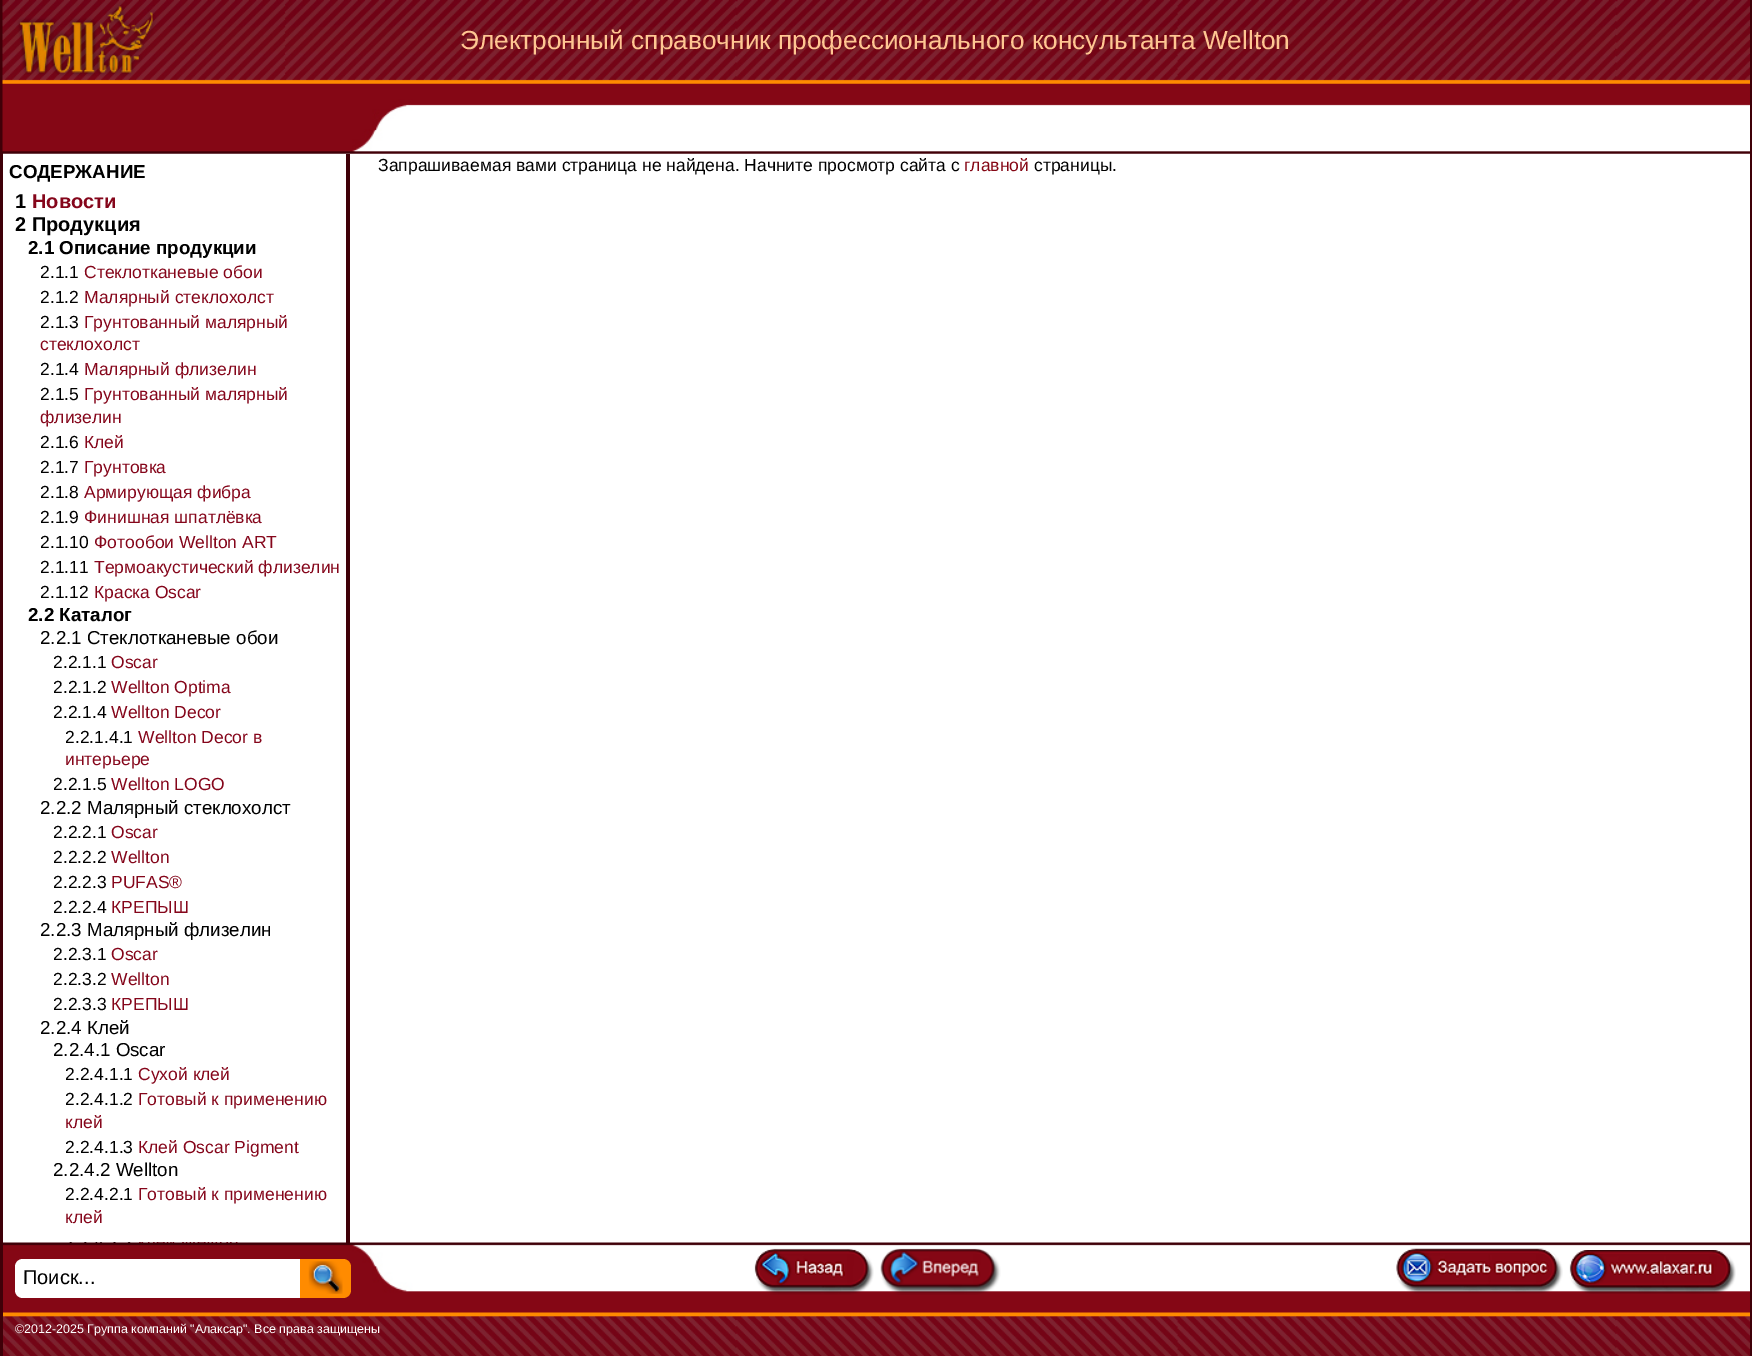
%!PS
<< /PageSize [1752 1356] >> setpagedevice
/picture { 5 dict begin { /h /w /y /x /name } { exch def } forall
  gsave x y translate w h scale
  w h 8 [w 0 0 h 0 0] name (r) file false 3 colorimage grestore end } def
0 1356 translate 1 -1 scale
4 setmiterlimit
1 setgray
0 0 1752 1356 rectfill
0.247 0 0.031 setrgbcolor
1750 0 2 1243 rectfill
0 0 3 1243 rectfill
(img1.rgb) 2 0 1748 154 picture
/LiberationSans-Regular [26.25 0 0 -26.25 0 0] selectfont
1 0.776 0.573 setrgbcolor
460 49 moveto (Электронный справочник профессионального консультанта Wellton) show
0.247 0 0.031 setrgbcolor
346 154 4 1089 rectfill
/LiberationSans-Bold [18.75 0 0 -18.75 0 0] selectfont
0 setgray
9 178 moveto (СОДЕРЖАНИЕ) show
/LiberationSans-Bold [20 0 0 -20 0 0] selectfont
15 208 moveto (1) show
0.522 0.024 0.106 setrgbcolor
32 208 moveto (Новости) show
0 setgray
15 231 moveto (2 Продукция) show
/LiberationSans-Bold [18.75 0 0 -18.75 0 0] selectfont
28 254 moveto (2.1 Описание продукции) show
/LiberationSans-Regular [17.5 0 0 -17.5 0 0] selectfont
40 278 moveto (2.1.1) show
0.522 0.024 0.106 setrgbcolor
84 278 moveto (Стеклотканевые обои) show
0 setgray
40 303 moveto (2.1.2) show
0.522 0.024 0.106 setrgbcolor
84 303 moveto (Малярный стеклохолст) show
0 setgray
40 328 moveto (2.1.3) show
0.522 0.024 0.106 setrgbcolor
84 328 moveto (Грунтованный малярный) show
40 350 moveto (стеклохолст) show
0 setgray
40 375 moveto (2.1.4) show
0.522 0.024 0.106 setrgbcolor
84 375 moveto (Малярный флизелин) show
0 setgray
40 400 moveto (2.1.5) show
0.522 0.024 0.106 setrgbcolor
84 400 moveto (Грунтованный малярный) show
40 423 moveto (флизелин) show
0 setgray
40 448 moveto (2.1.6) show
0.522 0.024 0.106 setrgbcolor
84 448 moveto (Клей) show
0 setgray
40 473 moveto (2.1.7) show
0.522 0.024 0.106 setrgbcolor
84 473 moveto (Грунтовка) show
0 setgray
40 498 moveto (2.1.8) show
0.522 0.024 0.106 setrgbcolor
84 498 moveto (Армирующая фибра) show
0 setgray
40 523 moveto (2.1.9) show
0.522 0.024 0.106 setrgbcolor
84 523 moveto (Финишная шпатлёвка) show
0 setgray
40 548 moveto (2.1.10) show
0.522 0.024 0.106 setrgbcolor
94 548 moveto (Фотообои Wellton ART) show
0 setgray
40 573 moveto (2.1.11) show
0.522 0.024 0.106 setrgbcolor
94 573 moveto (Термоакустический флизелин) show
0 setgray
40 598 moveto (2.1.12) show
0.522 0.024 0.106 setrgbcolor
94 598 moveto (Краска Oscar) show
/LiberationSans-Bold [18.75 0 0 -18.75 0 0] selectfont
0 setgray
28 621 moveto (2.2 Каталог) show
/LiberationSans-Regular [18.75 0 0 -18.75 0 0] selectfont
40 644 moveto (2.2.1 Стеклотканевые обои) show
/LiberationSans-Regular [17.5 0 0 -17.5 0 0] selectfont
53 668 moveto (2.2.1.1) show
0.522 0.024 0.106 setrgbcolor
111 668 moveto (Oscar) show
0 setgray
53 693 moveto (2.2.1.2) show
0.522 0.024 0.106 setrgbcolor
111 693 moveto (Wellton Optima) show
0 setgray
53 718 moveto (2.2.1.4) show
0.522 0.024 0.106 setrgbcolor
111 718 moveto (Wellton Decor) show
0 setgray
65 743 moveto (2.2.1.4.1) show
0.522 0.024 0.106 setrgbcolor
138 743 moveto (Wellton Decor в) show
65 765 moveto (интерьере) show
0 setgray
53 790 moveto (2.2.1.5) show
0.522 0.024 0.106 setrgbcolor
111 790 moveto (Wellton LOGO) show
/LiberationSans-Regular [18.75 0 0 -18.75 0 0] selectfont
0 setgray
40 814 moveto (2.2.2 Малярный стеклохолст) show
/LiberationSans-Regular [17.5 0 0 -17.5 0 0] selectfont
53 838 moveto (2.2.2.1) show
0.522 0.024 0.106 setrgbcolor
111 838 moveto (Oscar) show
0 setgray
53 863 moveto (2.2.2.2) show
0.522 0.024 0.106 setrgbcolor
111 863 moveto (Wellton) show
0 setgray
53 888 moveto (2.2.2.3) show
0.522 0.024 0.106 setrgbcolor
111 888 moveto (PUFAS®) show
0 setgray
53 913 moveto (2.2.2.4) show
0.522 0.024 0.106 setrgbcolor
111 913 moveto (КРЕПЫШ) show
/LiberationSans-Regular [18.75 0 0 -18.75 0 0] selectfont
0 setgray
40 936 moveto (2.2.3 Малярный флизелин) show
/LiberationSans-Regular [17.5 0 0 -17.5 0 0] selectfont
53 960 moveto (2.2.3.1) show
0.522 0.024 0.106 setrgbcolor
111 960 moveto (Oscar) show
0 setgray
53 985 moveto (2.2.3.2) show
0.522 0.024 0.106 setrgbcolor
111 985 moveto (Wellton) show
0 setgray
53 1010 moveto (2.2.3.3) show
0.522 0.024 0.106 setrgbcolor
111 1010 moveto (КРЕПЫШ) show
/LiberationSans-Regular [18.75 0 0 -18.75 0 0] selectfont
0 setgray
40 1034 moveto (2.2.4 Клей) show
53 1056 moveto (2.2.4.1 Oscar) show
/LiberationSans-Regular [17.5 0 0 -17.5 0 0] selectfont
65 1080 moveto (2.2.4.1.1) show
0.522 0.024 0.106 setrgbcolor
138 1080 moveto (Сухой клей) show
0 setgray
65 1105 moveto (2.2.4.1.2) show
0.522 0.024 0.106 setrgbcolor
138 1105 moveto (Готовый к применению) show
65 1128 moveto (клей) show
0 setgray
65 1153 moveto (2.2.4.1.3) show
0.522 0.024 0.106 setrgbcolor
138 1153 moveto (Клей Oscar Pigment) show
/LiberationSans-Regular [18.75 0 0 -18.75 0 0] selectfont
0 setgray
53 1176 moveto (2.2.4.2 Wellton) show
/LiberationSans-Regular [17.5 0 0 -17.5 0 0] selectfont
65 1200 moveto (2.2.4.2.1) show
0.522 0.024 0.106 setrgbcolor
138 1200 moveto (Готовый к применению) show
65 1223 moveto (клей) show
0 setgray
378 171 moveto (Запрашиваемая вами страница не найдена. Начните просмотр сайта с) show
0.522 0.027 0.082 setrgbcolor
964 171 moveto (главной) show
0 setgray
1034 171 moveto (страницы.) show
(img2.rgb) 2 1242 1750 114 picture
0.247 0 0.031 setrgbcolor
1750 1243 2 113 rectfill
0 1243 3 113 rectfill
1 setgray
newpath 23 1259 moveto 301 1259 lineto 301 1298 lineto 23 1298 lineto 18.5 1298 15 1294.5 15 1290 curveto 15 1267 lineto 15 1262.5 18.5 1259 23 1259 curveto closepath fill
/LiberationSans-Regular [20 0 0 -20 0 0] selectfont
0 setgray
23 1284 moveto (Поиск...) show
1 0.545 0 setrgbcolor
newpath 300 1259 moveto 343 1259 lineto 347.5 1259 351 1262.5 351 1267 curveto 351 1290 lineto 351 1294.5 347.5 1298 343 1298 curveto 300 1298 lineto closepath fill
(img3.rgb) 308 1261 35 33 picture
/LiberationSans-Regular [12.5 0 0 -12.5 0 0] selectfont
1 setgray
15 1333 moveto (©2012-2025 Группа компаний "Алаксар". Все права защищены) show
(img4.rgb) 754 1248 120 47 picture
(img5.rgb) 880 1248 121 47 picture
(img6.rgb) 1396 1248 167 46 picture
(img7.rgb) 1569 1250 167 44 picture
showpage
